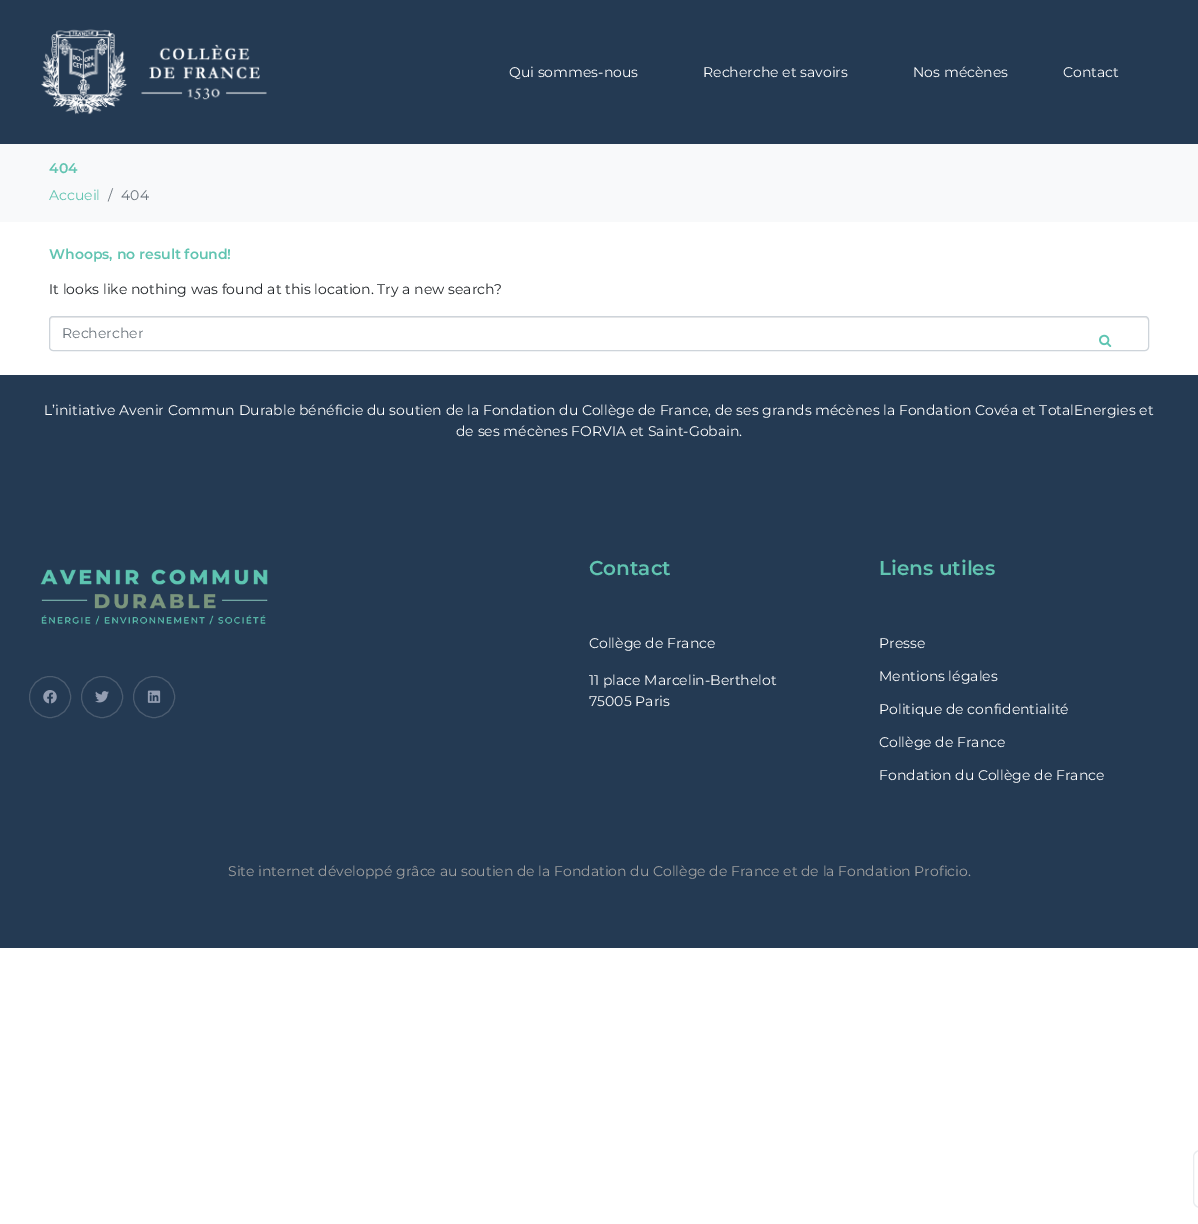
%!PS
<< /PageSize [1198 1224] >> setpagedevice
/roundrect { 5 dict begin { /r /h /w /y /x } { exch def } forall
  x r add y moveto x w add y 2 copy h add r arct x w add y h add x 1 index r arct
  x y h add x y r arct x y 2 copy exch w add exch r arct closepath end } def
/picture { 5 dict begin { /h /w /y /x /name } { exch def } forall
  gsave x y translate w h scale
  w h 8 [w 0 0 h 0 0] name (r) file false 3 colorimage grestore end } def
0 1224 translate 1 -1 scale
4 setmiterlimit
1 setgray
0 0 1198 1224 rectfill
0.141 0.227 0.325 setrgbcolor
0 0 1198 144 rectfill
(img1.rgb) 41 29 226 86 picture
/Montserrat-Regular [14 0 0 -14 0 0] selectfont
1 setgray
509 77 moveto (Qui sommes-nous) show
703 77 moveto (Recherche et savoirs) show
913 77 moveto (Nos mécènes) show
1063 77 moveto (Contact) show
0.973 0.976 0.98 setrgbcolor
0 144 1198 78 rectfill
/Montserrat-SemiBold [14 0 0 -14 0 0] selectfont
0.38 0.769 0.694 setrgbcolor
49 173 moveto (404) show
/Montserrat-Regular [14 0 0 -14 0 0] selectfont
49 200 moveto (Accueil) show
0.424 0.459 0.49 setrgbcolor
108 200 moveto (/) show
121 200 moveto (404) show
/Montserrat-SemiBold [14 0 0 -14 0 0] selectfont
0.38 0.769 0.694 setrgbcolor
49 259 moveto (Whoops, no result found!) show
/Montserrat-Regular [14 0 0 -14 0 0] selectfont
0.129 0.145 0.161 setrgbcolor
49 294 moveto (It looks like nothing was found at this location. Try a new search?) show
0.925 setgray
newpath 53 318 moveto 1145 318 lineto 1147 318 1148 319 1148 321 curveto 1148 320 lineto 1148 318 1147 317 1145 317 curveto 53 317 lineto 51 317 50 318 50 320 curveto 50 321 lineto 50 319 51 318 53 318 curveto closepath fill
0.808 0.831 0.855 setrgbcolor
49.5 316.5 1099 34 3.5 roundrect stroke
0.424 0.459 0.49 setrgbcolor
62 338 moveto (Rechercher) show
(img2.rgb) 1099 334 13 13 picture
0.141 0.227 0.325 setrgbcolor
0 375 1198 573 rectfill
1 setgray
44 415 moveto (L’initiative Avenir Commun Durable bénéficie du soutien de la Fondation du Collège de France, de ses grands mécènes la Fondation Covéa et TotalEnergies et) show
456 436 moveto (de ses mécènes FORVIA et Saint-Gobain.) show
(img3.rgb) 40 569 228 56 picture
0.294 0.361 0.439 setrgbcolor
newpath 50 697 20.5 0 360 arc closepath stroke
(img4.rgb) 43 690 14 14 picture
newpath 102 697 20.5 0 360 arc closepath stroke
(img5.rgb) 95 691 14 12 picture
newpath 154 697 20.5 0 360 arc closepath stroke
(img6.rgb) 147 690 14 13 picture
/Montserrat-SemiBold [20 0 0 -20 0 0] selectfont
0.38 0.769 0.694 setrgbcolor
589 575 moveto (Contact) show
/Montserrat-Regular [14 0 0 -14 0 0] selectfont
1 setgray
589 648 moveto (Collège de France) show
589 685 moveto (11 place Marcelin-Berthelot) show
589 706 moveto (75005 Paris) show
/Montserrat-SemiBold [20 0 0 -20 0 0] selectfont
0.38 0.769 0.694 setrgbcolor
879 575 moveto (Liens utiles) show
/Montserrat-Regular [14 0 0 -14 0 0] selectfont
1 setgray
879 648 moveto (Presse) show
879 681 moveto (Mentions légales) show
879 714 moveto (Politique de confidentialité) show
879 747 moveto (Collège de France) show
879 780 moveto (Fondation du Collège de France) show
0.631 setgray
228 876 moveto (Site internet développé grâce au soutien de la Fondation du Collège de France et de la Fondation Proficio.) show
0.914 0.925 0.937 setrgbcolor
1193.5 1150.5 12 57 6.5 roundrect stroke
showpage
